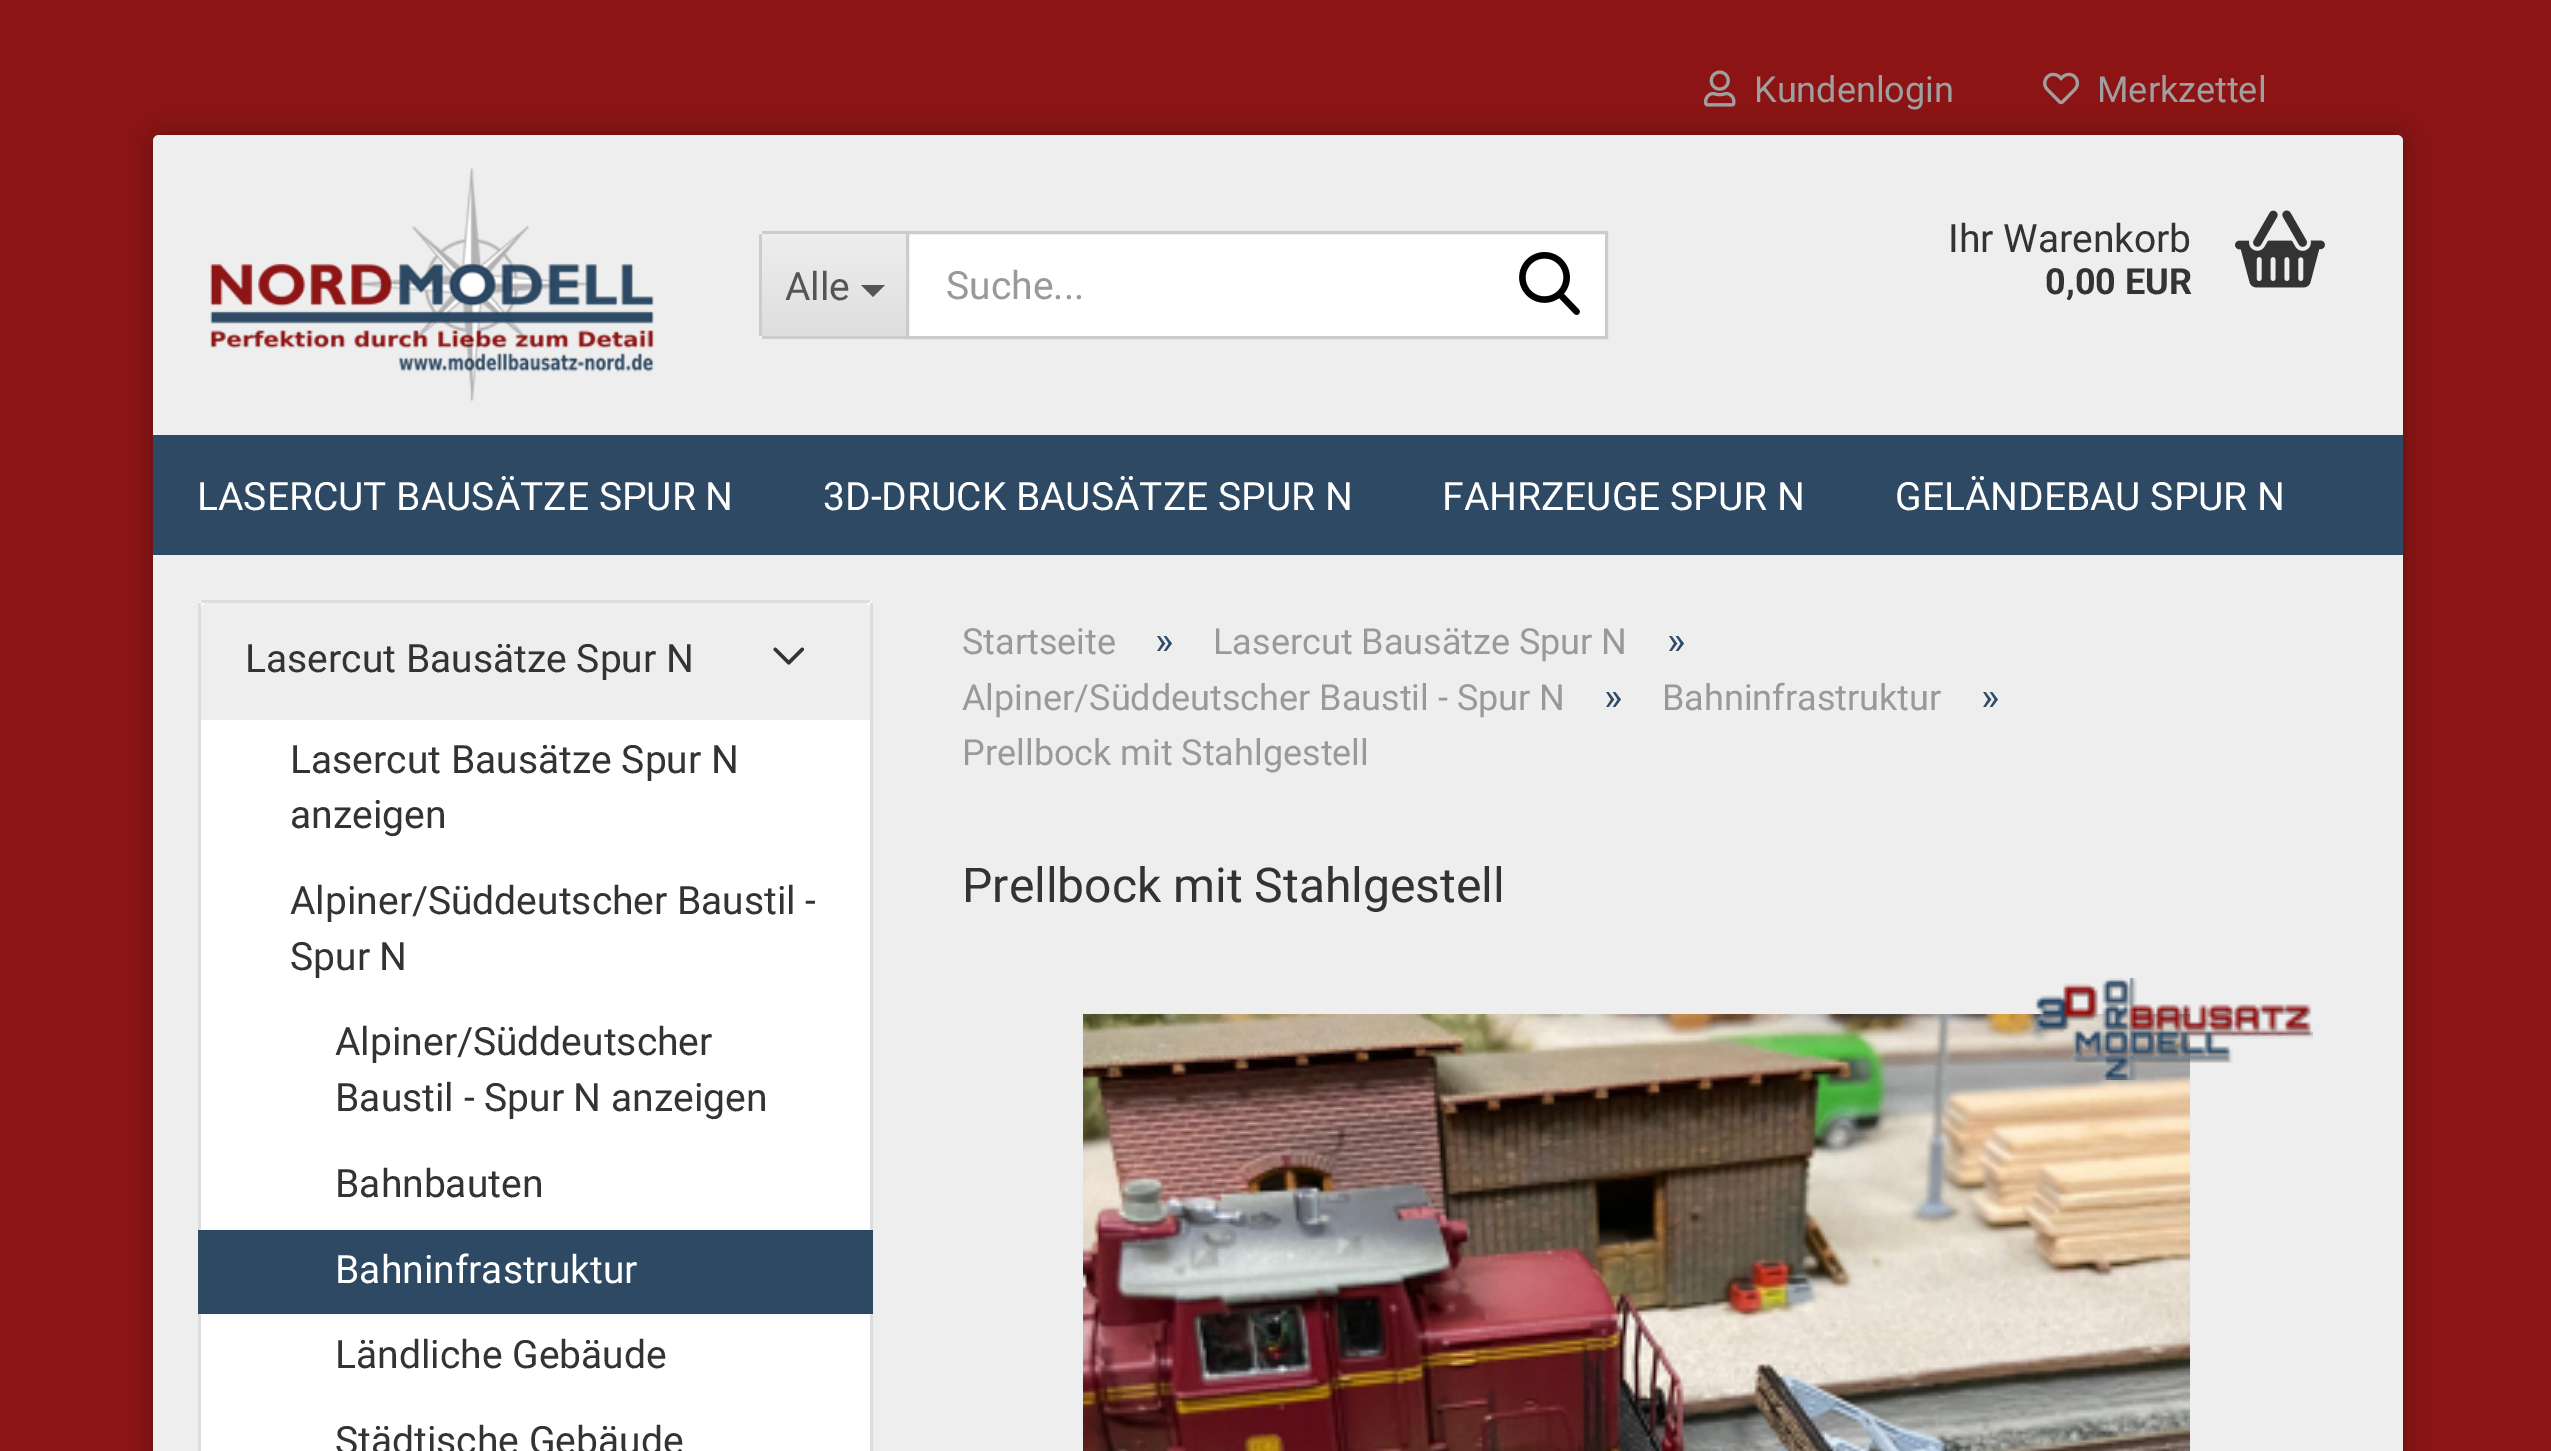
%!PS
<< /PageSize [2551 1451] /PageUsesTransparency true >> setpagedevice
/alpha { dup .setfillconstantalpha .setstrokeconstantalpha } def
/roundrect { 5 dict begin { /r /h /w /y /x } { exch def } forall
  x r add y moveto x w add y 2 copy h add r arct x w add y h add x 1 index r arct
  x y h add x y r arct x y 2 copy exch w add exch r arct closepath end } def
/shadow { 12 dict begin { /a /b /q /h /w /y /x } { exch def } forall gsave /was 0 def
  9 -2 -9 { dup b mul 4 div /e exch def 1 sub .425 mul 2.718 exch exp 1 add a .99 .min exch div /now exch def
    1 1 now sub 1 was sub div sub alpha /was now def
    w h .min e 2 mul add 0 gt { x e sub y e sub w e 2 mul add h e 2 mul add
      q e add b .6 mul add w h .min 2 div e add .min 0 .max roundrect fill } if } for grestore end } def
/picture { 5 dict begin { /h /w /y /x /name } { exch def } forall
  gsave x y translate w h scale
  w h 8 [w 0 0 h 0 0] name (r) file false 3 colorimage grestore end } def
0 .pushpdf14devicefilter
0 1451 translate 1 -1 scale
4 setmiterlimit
0.549 0.078 0.078 setrgbcolor
0 0 2551 1451 rectfill
0 setgray
153 135 2250 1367 6 15 0.3 shadow
0.933 setgray
153 135 2250 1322 6 roundrect fill
(img1.rgb) 1704 70 32 37 picture
/Roboto-Regular [36 0 0 -36 0 0] selectfont
0.624 setgray
1754 102 moveto (Kundenlogin) show
(img2.rgb) 2043 72 37 33 picture
2097 102 moveto (Merkzettel) show
(img3.rgb) 210 168 444 234 picture
0.953 setgray
newpath 765 231 moveto 906 231 lineto 906 339 lineto 765 339 lineto 761.5 339 759 336.5 759 333 curveto 759 237 lineto 759 233.5 761.5 231 765 231 curveto closepath fill
gsave newpath 762 234 moveto 906 234 lineto 906 336 lineto 762 336 lineto closepath clip newpath
<< /ShadingType 2 /ColorSpace /DeviceRGB /Coords [834 234 834 336] /Extend [true true] /Function << /FunctionType 2 /Domain [0 1] /C0 [0.933 0.933 0.933] /C1 [0.871 0.871 0.871] /N 1 >> >> shfill grestore
0.8 setgray
762 231 144 3 rectfill
762 336 144 3 rectfill
759 234 3 102 rectfill
/Roboto-Regular [39 0 0 -39 0 0] selectfont
0.333 setgray
785 300 moveto (Alle) show
newpath 861 285 moveto 885 285 lineto 873 297 lineto closepath fill
1 setgray
newpath 907.5 232.5 moveto 1606.5 232.5 lineto 1606.5 337.5 lineto 907.5 337.5 lineto closepath gsave fill grestore
0.8 setgray
3 setlinewidth
stroke
0.6 setgray
946 299 moveto (Suche...) show
(img4.rgb) 1519 252 61 63 picture
0.2 setgray
1948 252 moveto (Ihr Warenkorb) show
/Roboto-Bold [36 0 0 -36 0 0] selectfont
2045 294 moveto (0,00 EUR) show
(img5.rgb) 2235 210 90 78 picture
0.176 0.286 0.392 setrgbcolor
153 435 2250 120 rectfill
/Roboto-Regular [39 0 0 -39 0 0] selectfont
1 setgray
197 510 moveto (LASERCUT BAUSÄTZE SPUR N) show
823 510 moveto (3D-DRUCK BAUSÄTZE SPUR N) show
1442 510 moveto (FAHRZEUGE SPUR N) show
1895 510 moveto (GELÄNDEBAU SPUR N) show
198 600 675 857 6 roundrect fill
0.867 setgray
201 600 669 3 rectfill
870 603 3 848 rectfill
198 603 3 848 rectfill
0.933 setgray
newpath 207 603 moveto 864 603 lineto 867.5 603 870 605.5 870 609 curveto 870 720 lineto 201 720 lineto 201 609 lineto 201 605.5 203.5 603 207 603 curveto closepath fill
0.2 setgray
245 672 moveto (Lasercut Bausätze Spur N) show
(img6.rgb) 773 647 32 18 picture
290 773 moveto (Lasercut Bausätze Spur N) show
290 828 moveto (anzeigen) show
290 914 moveto (Alpiner/Süddeutscher Baustil -) show
290 970 moveto (Spur N) show
335 1055 moveto (Alpiner/Süddeutscher) show
335 1111 moveto (Baustil - Spur N anzeigen) show
335 1197 moveto (Bahnbauten) show
0.176 0.286 0.392 setrgbcolor
198 1230 675 84 rectfill
1 setgray
335 1283 moveto (Bahninfrastruktur) show
0.2 setgray
335 1368 moveto (Ländliche Gebäude) show
335 1454 moveto (Städtische Gebäude) show
/Roboto-Regular [36 0 0 -36 0 0] selectfont
0.6 setgray
962 654 moveto (Startseite) show
/Roboto-Regular [39 0 0 -39 0 0] selectfont
0.176 0.286 0.392 setrgbcolor
1155 654 moveto (») show
/Roboto-Regular [36 0 0 -36 0 0] selectfont
0.6 setgray
1213 654 moveto (Lasercut Bausätze Spur N) show
/Roboto-Regular [39 0 0 -39 0 0] selectfont
0.176 0.286 0.392 setrgbcolor
1667 654 moveto (») show
/Roboto-Regular [36 0 0 -36 0 0] selectfont
0.6 setgray
962 710 moveto (Alpiner/Süddeutscher Baustil - Spur N) show
/Roboto-Regular [39 0 0 -39 0 0] selectfont
0.176 0.286 0.392 setrgbcolor
1604 710 moveto (») show
/Roboto-Regular [36 0 0 -36 0 0] selectfont
0.6 setgray
1662 710 moveto (Bahninfrastruktur) show
/Roboto-Regular [39 0 0 -39 0 0] selectfont
0.176 0.286 0.392 setrgbcolor
1981 710 moveto (») show
/Roboto-Regular [36 0 0 -36 0 0] selectfont
0.6 setgray
962 765 moveto (Prellbock mit Stahlgestell) show
/Roboto-Regular [48 0 0 -48 0 0] selectfont
0.2 setgray
962 902 moveto (Prellbock mit Stahlgestell) show
(img8.rgb) 1083 1014 1107 437 picture
(img7.rgb) 2033 978 280 102 picture
.poppdf14devicefilter showpage
